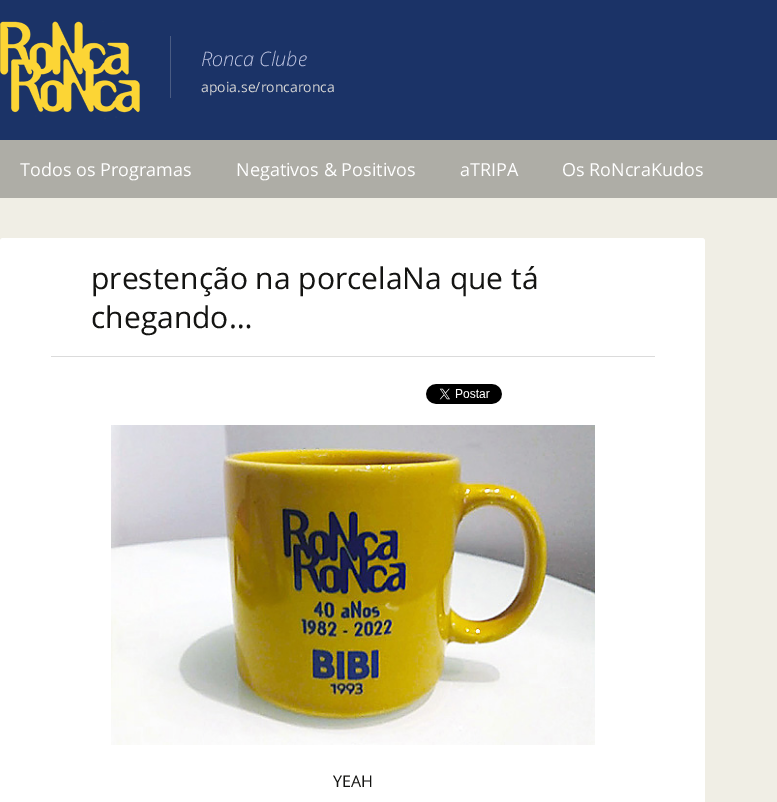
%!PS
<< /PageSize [777 802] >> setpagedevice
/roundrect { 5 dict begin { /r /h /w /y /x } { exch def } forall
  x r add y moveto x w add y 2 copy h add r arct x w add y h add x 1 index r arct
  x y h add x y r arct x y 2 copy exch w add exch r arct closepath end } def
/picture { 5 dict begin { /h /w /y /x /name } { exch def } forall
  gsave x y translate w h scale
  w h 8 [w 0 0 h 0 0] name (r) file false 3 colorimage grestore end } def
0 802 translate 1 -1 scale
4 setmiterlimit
0.941 0.933 0.898 setrgbcolor
0 0 777 802 rectfill
0.106 0.2 0.404 setrgbcolor
0 0 777 140 rectfill
(img1.rgb) 0 21 140 98 picture
0.29 0.361 0.514 setrgbcolor
170 36 1 62 rectfill
/OpenSans-LightItalic [20 0 0 -20 0 0] selectfont
0.741 0.765 0.878 setrgbcolor
201 66 moveto (Ronca Clube) show
/OpenSans-Regular [14 0 0 -14 0 0] selectfont
0.827 setgray
201 92 moveto (apoia.se/roncaronca) show
0.682 0.678 0.651 setrgbcolor
0 140 777 58 rectfill
/OpenSans-Regular [18 0 0 -18 0 0] selectfont
1 setgray
20 176 moveto (Todos os Programas) show
236 176 moveto (Negativos & Positivos) show
460 176 moveto (aTRIPA) show
562 176 moveto (Os RoNcraKudos) show
0 238 705 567 3 roundrect fill
0.859 setgray
51 356 604 1 rectfill
/OpenSans-Regular [30 0 0 -30 0 0] selectfont
0.078 0.078 0.071 setrgbcolor
91 289 moveto (prestenção na porcelaNa que tá) show
91 328 moveto (chegando…) show
(img2.rgb) 426 384 76 20 picture
(img3.rgb) 111 425 484 320 picture
/OpenSans-Regular [16 0 0 -16 0 0] selectfont
333 787 moveto (YEAH) show
showpage
